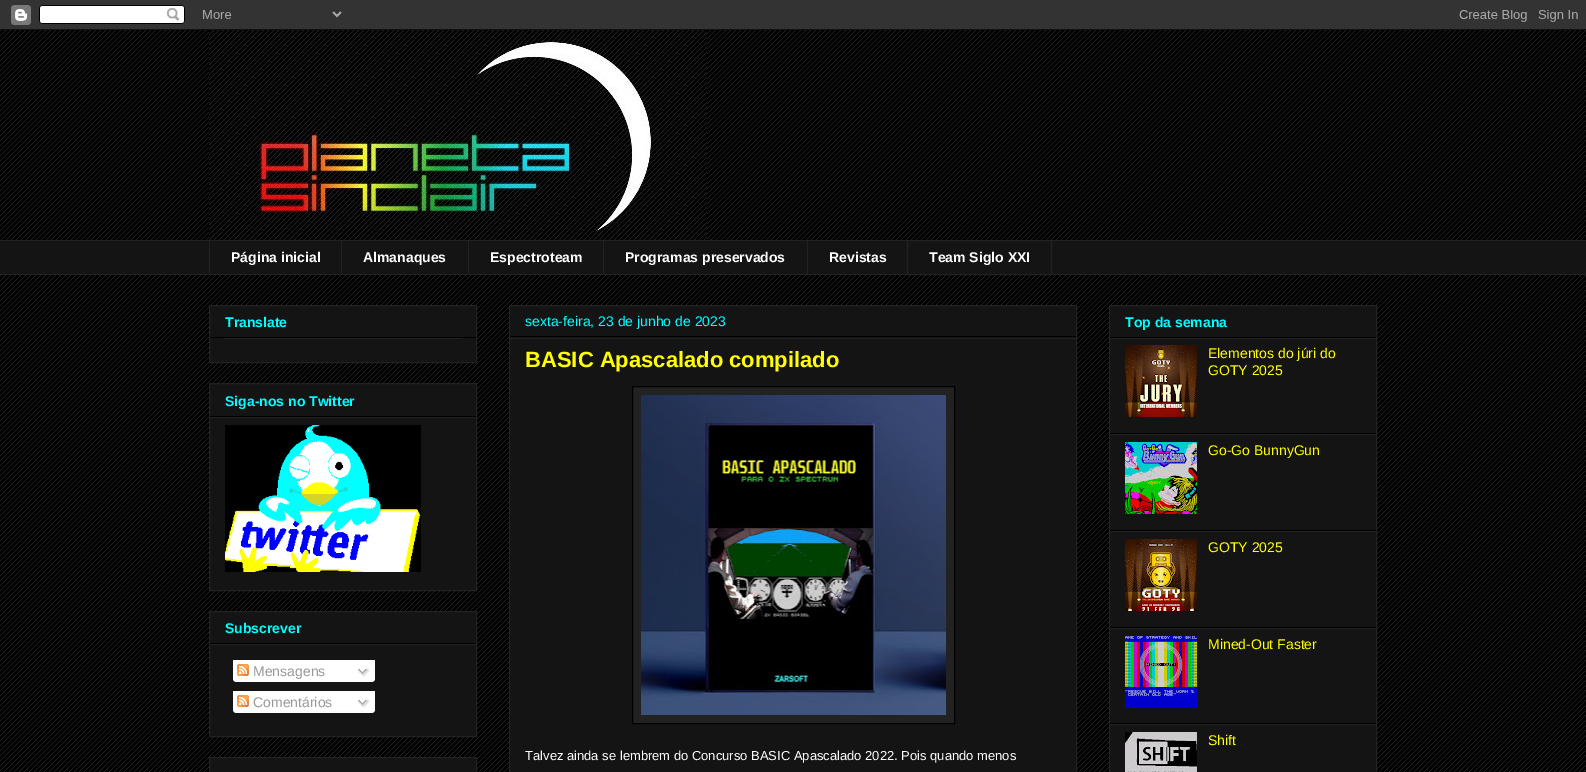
%!PS
<< /PageSize [1586 772] >> setpagedevice
/picture { 5 dict begin { /h /w /y /x /name } { exch def } forall
  gsave x y translate w h scale
  w h 8 [w 0 0 h 0 0] name (r) file false 3 colorimage grestore end } def
0 772 translate 1 -1 scale
4 setmiterlimit
0 setgray
0 0 1586 772 rectfill
(img1.rgb) 0 30 1586 742 picture
(img2.rgb) 0 0 1586 30 picture
(img3.rgb) 209 30 498 210 picture
0.078 setgray
0 241 1586 33 rectfill
0.133 setgray
0 240 1586 1 rectfill
209 240 1 35 rectfill
/LiberationSans-Bold [14 0 0 -14 0 0] selectfont
1 setgray
231 262 moveto (Página inicial) show
0.133 setgray
341 240 1 35 rectfill
1 setgray
363 262 moveto (Almanaques) show
0.133 setgray
468 240 1 35 rectfill
1 setgray
490 262 moveto (Espectroteam) show
0.133 setgray
603 240 1 35 rectfill
1 setgray
625 262 moveto (Programas preservados) show
0.133 setgray
807 240 1 35 rectfill
1 setgray
829 262 moveto (Revistas) show
0.133 setgray
907.5 240.5 144 34 rectstroke
1 setgray
929 262 moveto (Team Siglo XXI) show
0.133 setgray
0 274 1586 1 rectfill
0.078 setgray
newpath 209.5 305.5 moveto 476.5 305.5 lineto 476.5 362.5 lineto 209.5 362.5 lineto closepath gsave fill grestore
0.133 setgray
stroke
0 setgray
210 337 266 1 rectfill
0 1 1 setrgbcolor
225 327 moveto (Translate) show
0.133 setgray
225 338 236 1 rectfill
0.078 setgray
newpath 209.5 383.5 moveto 476.5 383.5 lineto 476.5 590.5 lineto 209.5 590.5 lineto closepath gsave fill grestore
0.133 setgray
stroke
0 setgray
210 416 266 1 rectfill
0 1 1 setrgbcolor
225 406 moveto (Siga-nos no Twitter) show
0.133 setgray
210 417 266 1 rectfill
(img4.rgb) 225 425 196 147 picture
0.078 setgray
newpath 209.5 611.5 moveto 476.5 611.5 lineto 476.5 736.5 lineto 209.5 736.5 lineto closepath gsave fill grestore
0.133 setgray
stroke
0 setgray
210 643 266 1 rectfill
0 1 1 setrgbcolor
225 633 moveto (Subscrever) show
0.133 setgray
210 644 266 1 rectfill
1 setgray
233 660 142 20 rectfill
(img5.rgb) 237 664 12 12 picture
/LiberationSans-Regular [14 0 0 -14 0 0] selectfont
0.6 setgray
253 676 moveto (Mensagens) show
(img6.rgb) 357 668 13 9 picture
(img7.rgb) 233 680 142 2 picture
1 setgray
233 691 142 20 rectfill
(img5.rgb) 237 695 12 12 picture
0.6 setgray
253 707 moveto (Comentários) show
(img6.rgb) 357 699 13 9 picture
(img7.rgb) 233 711 142 2 picture
0.078 setgray
newpath 209.5 757.5 moveto 476.5 757.5 lineto 476.5 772.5 lineto 209.5 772.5 lineto closepath gsave fill grestore
0.133 setgray
stroke
0.078 setgray
newpath 509.5 305.5 moveto 1076.5 305.5 lineto 1076.5 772.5 lineto 509.5 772.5 lineto closepath gsave fill grestore
0.133 setgray
stroke
0 setgray
510 336 566 1 rectfill
0 1 1 setrgbcolor
525 326 moveto (sexta-feira, 23 de junho de 2023) show
0.133 setgray
510 338 566 1 rectfill
/LiberationSans-Bold [22 0 0 -22 0 0] selectfont
1 1 0 setrgbcolor
525 367 moveto (BASIC Apascalado compilado) show
0.133 setgray
newpath 632.5 386.5 moveto 954.5 386.5 lineto 954.5 723.5 lineto 632.5 723.5 lineto closepath gsave fill grestore
0 setgray
stroke
(img8.rgb) 641 395 305 320 picture
/LiberationSans-Regular [13 0 0 -13 0 0] selectfont
1 setgray
525 760 moveto (Talvez ainda se lembrem do Concurso BASIC Apascalado 2022. Pois quando menos) show
0.078 setgray
newpath 1109.5 305.5 moveto 1376.5 305.5 lineto 1376.5 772.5 lineto 1109.5 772.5 lineto closepath gsave fill grestore
0.133 setgray
stroke
0 setgray
1110 337 266 1 rectfill
/LiberationSans-Bold [14 0 0 -14 0 0] selectfont
0 1 1 setrgbcolor
1125 327 moveto (Top da semana) show
0.133 setgray
1110 338 266 1 rectfill
0 setgray
1110 433 266 1 rectfill
(img9.rgb) 1125 345 72 72 picture
/LiberationSans-Regular [14 0 0 -14 0 0] selectfont
1 1 0 setrgbcolor
1208 358 moveto (Elementos do júri do) show
1208 375 moveto (GOTY 2025) show
0.133 setgray
1110 434 266 1 rectfill
0 setgray
1110 530 266 1 rectfill
(img10.rgb) 1125 442 72 72 picture
1 1 0 setrgbcolor
1208 455 moveto (Go-Go BunnyGun) show
0.133 setgray
1110 531 266 1 rectfill
0 setgray
1110 627 266 1 rectfill
(img11.rgb) 1125 539 72 72 picture
1 1 0 setrgbcolor
1208 552 moveto (GOTY 2025) show
0.133 setgray
1110 628 266 1 rectfill
0 setgray
1110 723 266 1 rectfill
(img12.rgb) 1125 636 72 72 picture
1 1 0 setrgbcolor
1208 649 moveto (Mined-Out Faster) show
0.133 setgray
1110 724 266 1 rectfill
(img13.rgb) 1125 732 72 40 picture
1 1 0 setrgbcolor
1208 745 moveto (Shift) show
showpage
